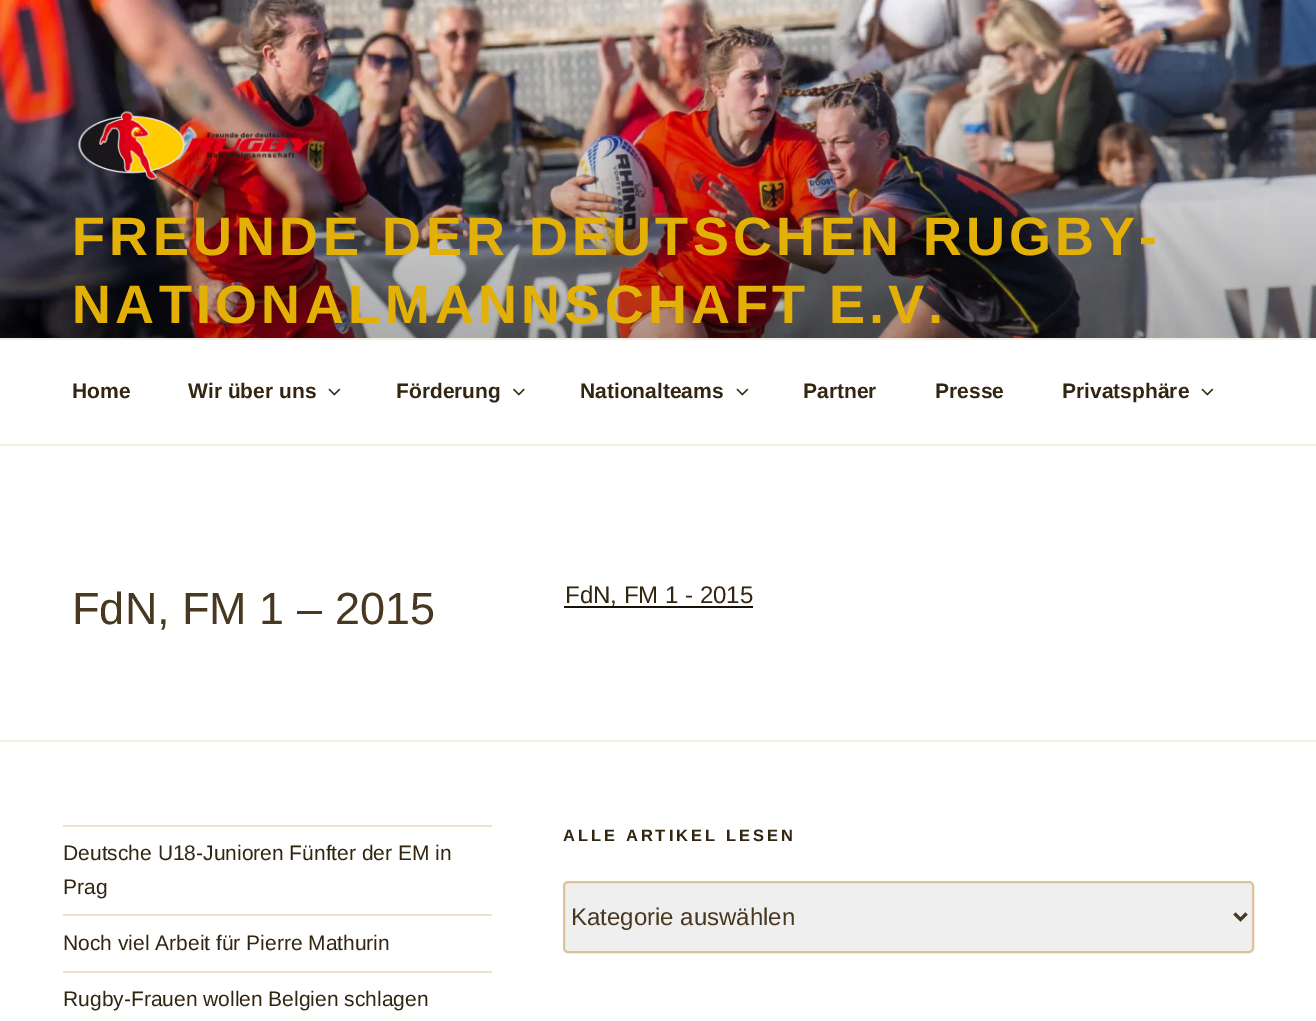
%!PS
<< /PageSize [1316 1021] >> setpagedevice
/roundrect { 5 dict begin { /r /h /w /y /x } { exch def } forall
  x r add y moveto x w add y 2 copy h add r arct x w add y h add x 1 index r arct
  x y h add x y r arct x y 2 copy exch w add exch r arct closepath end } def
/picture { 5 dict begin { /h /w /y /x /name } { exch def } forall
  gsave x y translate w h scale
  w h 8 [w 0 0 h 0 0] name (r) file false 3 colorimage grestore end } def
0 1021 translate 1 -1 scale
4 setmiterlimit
1 setgray
0 0 1316 1021 rectfill
(img1.rgb) 0 0 1316 338 picture
(img2.rgb) 77 111 239 69 picture
/LiberationSans-Bold [54 0 0 -54 0 0] selectfont
0.886 0.69 0.027 setrgbcolor
72 255 moveto 4.3 0 (FREUNDE DER DEUTSCHEN RUGBY-) ashow
72 323 moveto 4.3 0 (NATIONALMANNSCHAFT E.V.) ashow
0.965 0.937 0.894 setrgbcolor
0 338 1316 2 rectfill
0 444 1316 2 rectfill
/LiberationSans-Bold [21 0 0 -21 0 0] selectfont
0.196 0.145 0.067 setrgbcolor
72 398 moveto (Home) show
188 398 moveto (Wir über uns) show
(img3.rgb) 328 388 13 8 picture
396 398 moveto (Förderung) show
(img4.rgb) 513 388 12 8 picture
580 398 moveto (Nationalteams) show
(img3.rgb) 736 388 13 8 picture
803 398 moveto (Partner) show
935 398 moveto (Presse) show
1062 398 moveto (Privatsphäre) show
(img3.rgb) 1201 388 13 8 picture
/LiberationSans-Regular [45 0 0 -45 0 0] selectfont
0.278 0.22 0.122 setrgbcolor
72 624 moveto (FdN, FM 1 – 2015) show
0.09 0.067 0.031 setrgbcolor
564 606 189 2 rectfill
/LiberationSans-Regular [24 0 0 -24 0 0] selectfont
0.196 0.145 0.067 setrgbcolor
565 603 moveto (FdN, FM 1 - 2015) show
0.965 0.937 0.894 setrgbcolor
0 740 1316 2 rectfill
0.933 0.886 0.804 setrgbcolor
63 825 429 2 rectfill
63 914 429 2 rectfill
/LiberationSans-Regular [21 0 0 -21 0 0] selectfont
0.196 0.145 0.067 setrgbcolor
63 860 moveto (Deutsche U18-Junioren Fünfter der EM in) show
63 894 moveto (Prag) show
0.933 0.886 0.804 setrgbcolor
63 971 429 2 rectfill
0.196 0.145 0.067 setrgbcolor
63 950 moveto (Noch viel Arbeit für Pierre Mathurin) show
63 1006 moveto (Rugby-Frauen wollen Belgien schlagen) show
/LiberationSans-Bold [16.5 0 0 -16.5 0 0] selectfont
563 841 moveto 3 0 (ALLE ARTIKEL LESEN) ashow
0.937 setgray
564 882 689 70 4 roundrect gsave fill grestore
0.867 0.761 0.596 setrgbcolor
2 setlinewidth
stroke
0.278 0.22 0.122 setrgbcolor
3 setlinewidth
newpath 1234.5 913.5 moveto 1240.5 919.5 lineto 1246.5 913.5 lineto stroke
/LiberationSans-Regular [24 0 0 -24 0 0] selectfont
571 925 moveto (Kategorie auswählen) show
showpage
